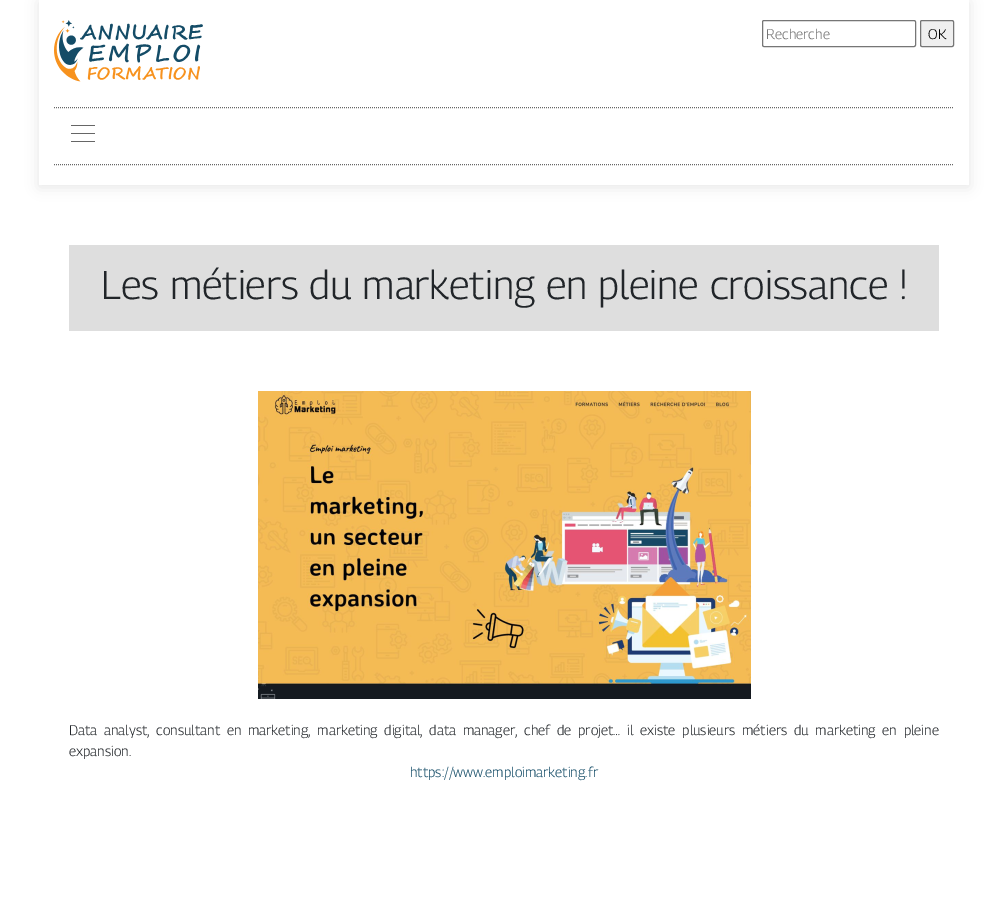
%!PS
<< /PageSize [1008 906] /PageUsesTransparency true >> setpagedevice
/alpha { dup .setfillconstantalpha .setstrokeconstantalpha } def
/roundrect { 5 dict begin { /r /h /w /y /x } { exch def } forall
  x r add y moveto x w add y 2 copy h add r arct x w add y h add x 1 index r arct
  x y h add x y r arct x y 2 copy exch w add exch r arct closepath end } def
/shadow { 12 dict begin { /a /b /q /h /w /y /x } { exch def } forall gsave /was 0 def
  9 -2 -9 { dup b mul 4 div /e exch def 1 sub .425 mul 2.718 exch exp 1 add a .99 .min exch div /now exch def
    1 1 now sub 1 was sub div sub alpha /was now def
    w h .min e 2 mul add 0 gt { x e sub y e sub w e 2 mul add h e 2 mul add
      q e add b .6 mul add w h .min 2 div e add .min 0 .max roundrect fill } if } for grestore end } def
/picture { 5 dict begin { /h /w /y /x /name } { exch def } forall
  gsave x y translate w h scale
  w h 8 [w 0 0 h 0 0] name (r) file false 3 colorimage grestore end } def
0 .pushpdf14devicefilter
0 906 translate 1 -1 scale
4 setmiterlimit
1 setgray
0 0 1008 906 rectfill
gsave
newpath 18 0 moveto 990 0 lineto 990 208 lineto 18 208 lineto closepath 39 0 moveto 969 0 lineto 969 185 lineto 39 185 lineto closepath eoclip newpath
0 setgray
39 2 930 185 0 6.5 0.1 shadow
grestore
(img1.rgb) 54 20 149 62 picture
0.463 setgray
762.5 20.5 153 26 1.5 roundrect stroke
/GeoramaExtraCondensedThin-Thin [14 0 0 -14 0 0] selectfont
0.459 setgray
766 39 moveto (Recherche) show
0.937 setgray
920.5 20.5 33 26 1.5 roundrect gsave fill grestore
0.463 setgray
stroke
0 setgray
928 39 moveto (OK) show
0.4 setgray
[1 1] 0 setdash
newpath 54 107.5 moveto 954 107.5 lineto stroke
newpath 54 164.5 moveto 954 164.5 lineto stroke
71 125 24 1 rectfill
71 133 24 1 rectfill
71 141 24 1 rectfill
0.871 setgray
69 245 870 86 rectfill
/GeoramaExtraCondensedThin-Thin [40 0 0 -40 0 0] selectfont
0.129 0.145 0.161 setrgbcolor
101 299 moveto (Les métiers du marketing en pleine croissance !) show
(img2.rgb) 258 391 493 308 picture
/GeoramaExtraCondensedThin-Thin [14 0 0 -14 0 0] selectfont
69 735 moveto 2.9 0 32 (Data analyst, consultant en marketing, marketing digital, data manager, chef de projet… il existe plusieurs métiers du marketing en pleine) widthshow
69 756 moveto (expansion.) show
0.078 0.298 0.404 setrgbcolor
410 777 moveto (https://www.emploimarketing.fr) show
.poppdf14devicefilter showpage
